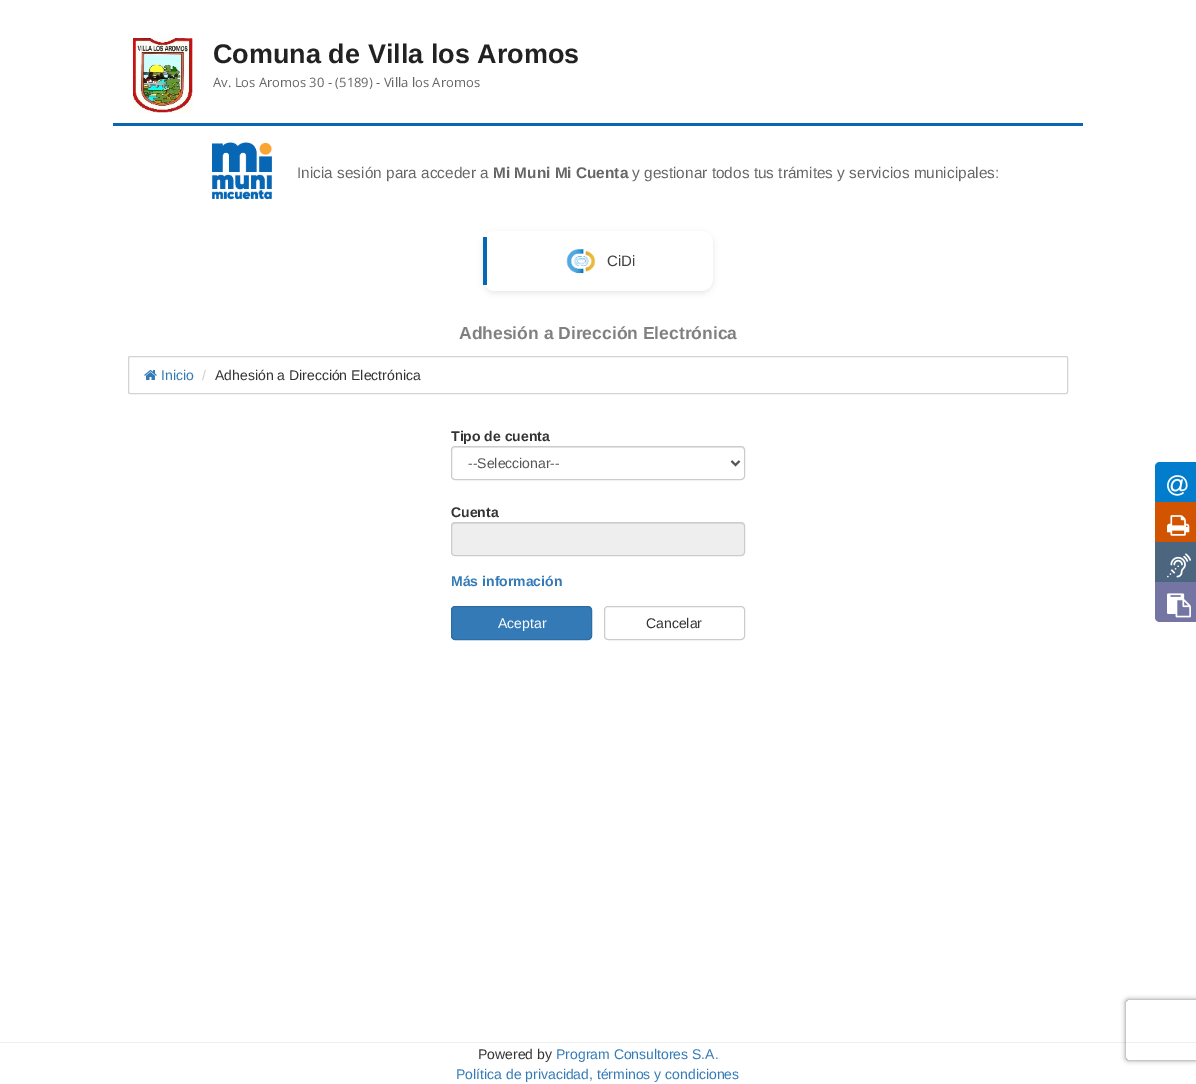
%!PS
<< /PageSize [1196 1084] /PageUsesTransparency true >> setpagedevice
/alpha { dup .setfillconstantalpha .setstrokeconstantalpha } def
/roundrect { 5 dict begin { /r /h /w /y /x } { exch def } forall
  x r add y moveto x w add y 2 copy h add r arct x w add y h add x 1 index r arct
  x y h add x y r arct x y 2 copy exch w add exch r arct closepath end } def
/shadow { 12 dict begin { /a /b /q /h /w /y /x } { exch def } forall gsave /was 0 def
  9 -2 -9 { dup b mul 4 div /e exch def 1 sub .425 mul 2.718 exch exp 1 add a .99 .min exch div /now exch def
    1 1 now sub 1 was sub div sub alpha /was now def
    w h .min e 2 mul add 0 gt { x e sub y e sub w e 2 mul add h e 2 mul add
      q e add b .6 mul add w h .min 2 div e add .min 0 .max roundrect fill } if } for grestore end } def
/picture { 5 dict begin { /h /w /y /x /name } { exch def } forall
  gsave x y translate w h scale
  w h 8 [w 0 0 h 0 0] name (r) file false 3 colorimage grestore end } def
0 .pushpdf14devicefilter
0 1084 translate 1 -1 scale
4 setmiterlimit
1 setgray
0 0 1196 1084 rectfill
0.031 0.404 0.71 setrgbcolor
113 123 970 3 rectfill
(img1.rgb) 133 38 60 75 picture
/LiberationSans-Bold [27 0 0 -27 0 0] selectfont
0.133 setgray
213 63 moveto (Comuna de Villa los Aromos) show
/OpenSans-Regular [13 0 0 -13 0 0] selectfont
0.4 setgray
213 87 moveto (Av. Los Aromos 30 - \(5189\) - Villa los Aromos) show
(img2.rgb) 212 142 60 58 picture
/LiberationSans-Regular [15.4 0 0 -15.4 0 0] selectfont
297 178 moveto (Inicia sesión para acceder a) show
/LiberationSans-Bold [15.4 0 0 -15.4 0 0] selectfont
493 178 moveto (Mi Muni Mi Cuenta) show
/LiberationSans-Regular [15.4 0 0 -15.4 0 0] selectfont
632 178 moveto (y gestionar todos tus trámites y servicios municipales:) show
0 setgray
483 233 230 60 12 3 0.1 shadow
1 setgray
483 231 230 60 12 roundrect fill
0.031 0.404 0.71 setrgbcolor
483 237 4 48 rectfill
(img3.rgb) 566 249 30 25 picture
/LiberationSans-Regular [15 0 0 -15 0 0] selectfont
0.263 setgray
607 266 moveto (CiDi) show
/LiberationSans-Bold [17.5 0 0 -17.5 0 0] selectfont
0.502 setgray
459 339 moveto (Adhesión a Dirección Electrónica) show
0.827 setgray
128.5 356.5 939 37 1.5 roundrect stroke
(img4.rgb) 144 370 13 10 picture
/LiberationSans-Regular [14 0 0 -14 0 0] selectfont
0.2 0.478 0.718 setrgbcolor
161 380 moveto (Inicio) show
0.8 setgray
202 380 moveto (/) show
0.2 setgray
215 380 moveto (Adhesión a Dirección Electrónica) show
/LiberationSans-Bold [14 0 0 -14 0 0] selectfont
451 441 moveto (Tipo de cuenta) show
0.925 setgray
newpath 455 448 moveto 741 448 lineto 743 448 744 449 744 451 curveto 744 449 743 447 741 447 curveto 455 447 lineto 453 447 452 449 452 451 curveto 452 449 453 448 455 448 curveto closepath fill
0.8 setgray
451.5 446.5 293 33 3.5 roundrect stroke
0.333 setgray
2 setlinewidth
newpath 731.5 461 moveto 735.5 465 lineto 739.5 461 lineto stroke
/LiberationSans-Regular [14 0 0 -14 0 0] selectfont
468 468 moveto (--Seleccionar--) show
/LiberationSans-Bold [14 0 0 -14 0 0] selectfont
0.2 setgray
451 517 moveto (Cuenta) show
0.933 setgray
451 522 294 34 4 roundrect fill
0.863 setgray
newpath 455 524 moveto 741 524 lineto 743 524 744 525 744 527 curveto 744 525 743 523 741 523 curveto 455 523 lineto 453 523 452 525 452 527 curveto 452 525 453 524 455 524 curveto closepath fill
0.8 setgray
1 setlinewidth
451.5 522.5 293 33 3.5 roundrect stroke
0.2 0.478 0.718 setrgbcolor
451 586 moveto (Más información) show
0.933 setgray
0 1042 1196 1 rectfill
gsave
newpath 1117 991 moveto 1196 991 lineto 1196 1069 lineto 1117 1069 lineto closepath 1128 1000 moveto 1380 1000 lineto 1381 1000 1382 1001 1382 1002 curveto 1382 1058 lineto 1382 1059 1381 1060 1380 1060 curveto 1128 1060 lineto 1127 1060 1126 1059 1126 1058 curveto 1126 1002 lineto 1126 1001 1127 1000 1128 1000 curveto closepath eoclip newpath
0.502 setgray
1126 1000 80 60 2 2.5 1 shadow
grestore
0.2 0.478 0.718 setrgbcolor
451.5 606.5 140 33 3.5 roundrect gsave fill grestore
0.18 0.427 0.643 setrgbcolor
stroke
/LiberationSans-Regular [14 0 0 -14 0 0] selectfont
1 setgray
498 628 moveto (Aceptar) show
0.8 setgray
604.5 606.5 140 33 3.5 roundrect stroke
0.2 setgray
646 628 moveto (Cancelar) show
0.008 0.49 0.808 setrgbcolor
newpath 1160 462 moveto 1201 462 lineto 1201 502 lineto 1155 502 lineto 1155 467 lineto 1155 464 1157 462 1160 462 curveto closepath fill
(img5.rgb) 1167 475 21 21 picture
0.827 0.329 0 setrgbcolor
1155 502 41 40 rectfill
(img6.rgb) 1167 515 23 21 picture
0.302 0.4 0.502 setrgbcolor
1155 542 41 40 rectfill
(img7.rgb) 1167 553 24 25 picture
0.459 0.459 0.639 setrgbcolor
newpath 1155 582 moveto 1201 582 lineto 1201 622 lineto 1160 622 lineto 1157 622 1155 620 1155 617 curveto closepath fill
(img8.rgb) 1167 593 24 25 picture
0.2 setgray
478 1059 moveto (Powered by) show
0.2 0.478 0.718 setrgbcolor
556 1059 moveto (Program Consultores S.A.) show
456 1079 moveto (Política de privacidad, términos y condiciones) show
.poppdf14devicefilter showpage
